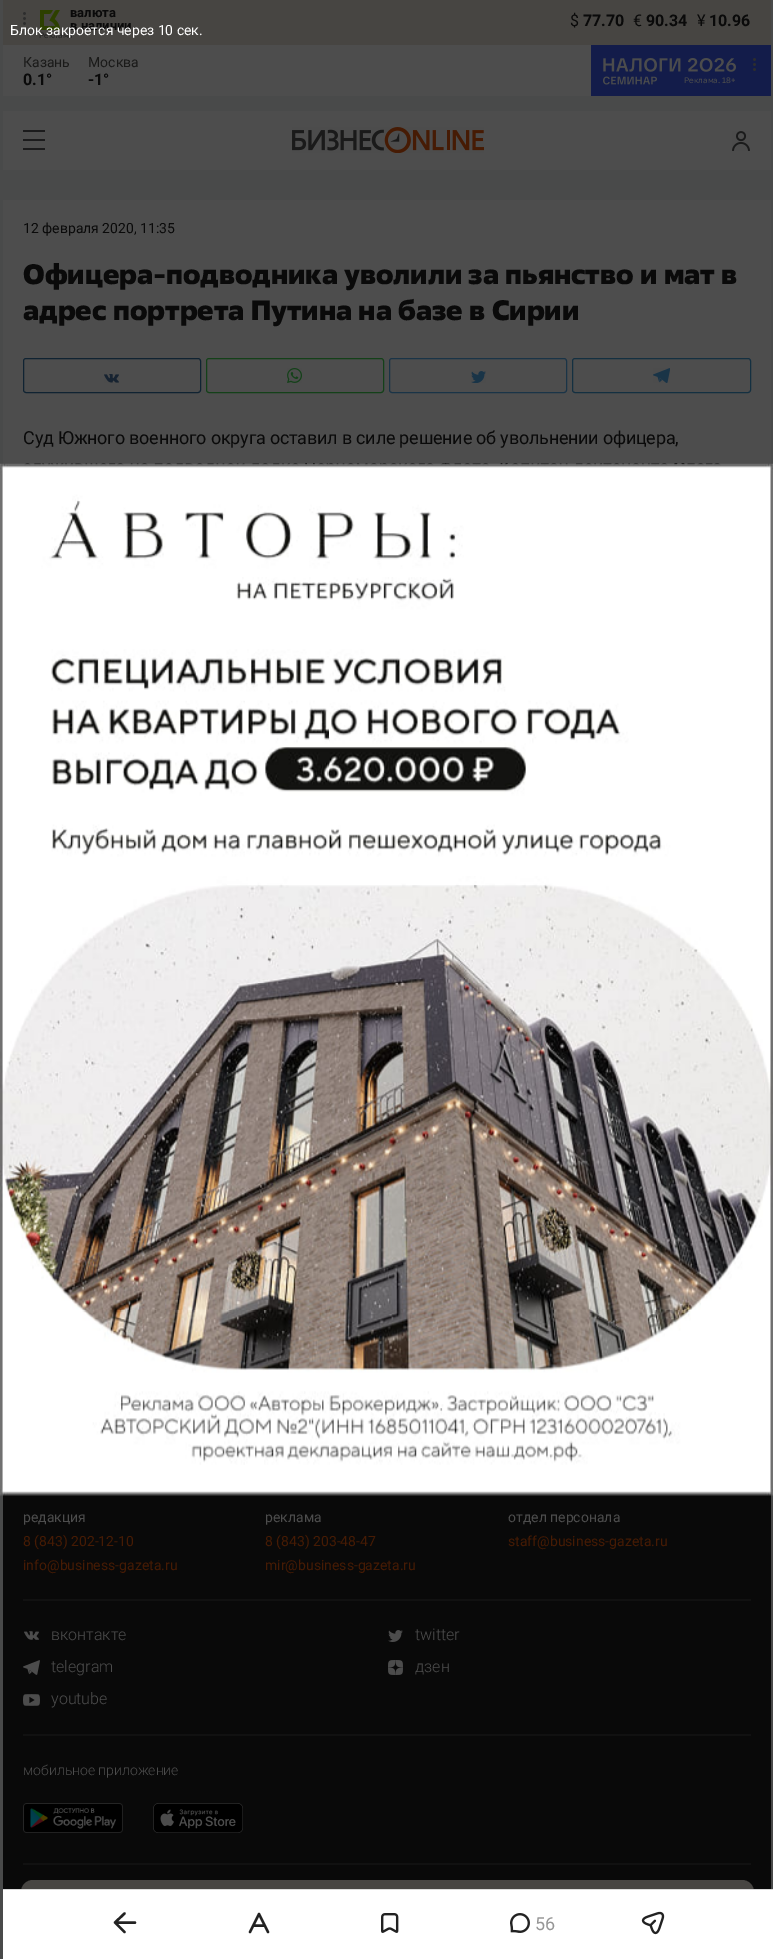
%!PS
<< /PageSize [773 1959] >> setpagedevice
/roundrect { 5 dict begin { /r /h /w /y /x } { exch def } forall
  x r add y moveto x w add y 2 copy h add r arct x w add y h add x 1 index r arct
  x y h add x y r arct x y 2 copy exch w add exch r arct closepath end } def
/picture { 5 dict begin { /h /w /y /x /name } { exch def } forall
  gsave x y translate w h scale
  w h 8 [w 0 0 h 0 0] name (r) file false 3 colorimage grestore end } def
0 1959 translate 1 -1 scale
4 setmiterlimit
0.286 0.29 0.29 setrgbcolor
0 0 773 1959 rectfill
0.278 0.271 0.259 setrgbcolor
3 0 768 45 rectfill
(img1.rgb) 23 12 3 13 picture
(img2.rgb) 40 10 20 20 picture
/Roboto-Bold [13 0 0 -13 0 0] selectfont
0.039 setgray
70 17 moveto (валюта) show
70 30 moveto (в наличии) show
/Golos-Regular [8 0 0 -8 0 0] selectfont
0.133 setgray
39 38 moveto (Реклама) show
/Roboto-Regular [16 0 0 -16 0 0] selectfont
0.039 setgray
570 26 moveto ($) show
/Roboto-Bold [16 0 0 -16 0 0] selectfont
583 26 moveto (77.70) show
/Roboto-Regular [16 0 0 -16 0 0] selectfont
633 26 moveto (€) show
/Roboto-Bold [16 0 0 -16 0 0] selectfont
646 26 moveto (90.34) show
/Roboto-Regular [16 0 0 -16 0 0] selectfont
697 26 moveto (¥) show
/Roboto-Bold [16 0 0 -16 0 0] selectfont
709 26 moveto (10.96) show
/Roboto-Regular [14 0 0 -14 0 0] selectfont
1 setgray
10 35 moveto (Блок закроется через 10 сек.) show
0.302 setgray
3 45 588 51 rectfill
0.102 0.102 0.098 setrgbcolor
23 67 moveto (Казань) show
/Roboto-Bold [16 0 0 -16 0 0] selectfont
0.039 setgray
23 85 moveto (0.1°) show
/Roboto-Regular [14 0 0 -14 0 0] selectfont
0.102 0.102 0.098 setrgbcolor
88 67 moveto (Москва) show
/Roboto-Bold [16 0 0 -16 0 0] selectfont
0.039 setgray
88 85 moveto (-1°) show
(img3.rgb) 591 45 180 51 picture
(img4.rgb) 753 58 3 13 picture
/Golos-Regular [8 0 0 -8 0 0] selectfont
0.302 setgray
684 83 moveto (Реклама. 18+) show
3 111 768 59 rectfill
0.106 0.106 0.11 setrgbcolor
23 130 22 20 rectfill
0.302 setgray
23 132 22 7 rectfill
23 141 22 7 rectfill
(img5.rgb) 292 127 192 26 picture
(img6.rgb) 732 131 18 20 picture
3 200 768 266 rectfill
/Roboto-Regular [14 0 0 -14 0 0] selectfont
0.039 setgray
23 233 moveto (12 февраля 2020, 11:35) show
/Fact-ExtraBold [28 0 0 -28 0 0] selectfont
23 284 moveto (Офицера-подводника уволили за пьянство и мат в) show
23 320 moveto (адрес портрета Путина на базе в Сирии) show
0.063 0.137 0.196 setrgbcolor
23.5 358.5 177 34 2.5 roundrect stroke
(img7.rgb) 104 374 15 9 picture
0.078 0.255 0.098 setrgbcolor
206.5 358.5 177 34 2.5 roundrect stroke
(img8.rgb) 287 368 15 15 picture
0.102 0.204 0.278 setrgbcolor
389.5 358.5 177 34 2.5 roundrect stroke
(img9.rgb) 471 371 15 12 picture
0.078 0.188 0.255 setrgbcolor
572.5 358.5 178 34 2.5 roundrect stroke
(img10.rgb) 653 368 17 15 picture
/Roboto-Regular [18 0 0 -18 0 0] selectfont
0.039 setgray
23 444 moveto -0.2 0 (Суд Южного военного округа оставил в силе решение об увольнении офицера,) ashow
0.035 setgray
3 1494 768 395 rectfill
0.278 0.271 0.259 setrgbcolor
21 1880 733 59 12 roundrect fill
1 setgray
3 1890 770 69 rectfill
0.851 setgray
3 1889 770 1 rectfill
0.133 setgray
2.4 setlinewidth
1 setlinecap
1 setlinejoin
newpath 124.5 1913.5 moveto 115 1922.5 lineto 124.5 1932 lineto 135 1922.5 moveto 115.5 1922.5 lineto stroke
newpath 250 1932 moveto 259 1914 lineto 268 1932 lineto 253.5 1925.5 moveto 264.5 1925.5 lineto stroke
(img11.rgb) 381 1913 18 20 picture
(img12.rgb) 510 1913 20 20 picture
0.588 setgray
535 1930 moveto (56) show
(img13.rgb) 641 1911 24 24 picture
(img14.rgb) 0 463 773 1033 picture
0.067 setgray
23 1599 728 2 rectfill
/Roboto-Regular [14 0 0 -14 0 0] selectfont
0.302 setgray
23 1522 moveto (редакция) show
0.275 0.106 0.016 setrgbcolor
23 1546 moveto (8 \(843\) 202-12-10) show
23 1570 moveto (info@business-gazeta.ru) show
0.302 setgray
265 1522 moveto (реклама) show
0.275 0.106 0.016 setrgbcolor
265 1546 moveto (8 \(843\) 203-48-47) show
265 1570 moveto (mir@business-gazeta.ru) show
0.302 setgray
508 1522 moveto (отдел персонала) show
0.275 0.106 0.016 setrgbcolor
508 1546 moveto (staff@business-gazeta.ru) show
0.067 setgray
23 1734 728 2 rectfill
(img15.rgb) 24 1631 15 9 picture
/Roboto-Light [16 0 0 -16 0 0] selectfont
0.302 setgray
51 1640 moveto (вконтакте) show
(img16.rgb) 388 1630 15 12 picture
415 1640 moveto (twitter) show
(img17.rgb) 23 1660 17 15 picture
51 1672 moveto (telegram) show
(img18.rgb) 388 1660 15 15 picture
415 1672 moveto (дзен) show
(img19.rgb) 23 1694 17 12 picture
51 1704 moveto (youtube) show
0.067 setgray
23 1863 728 2 rectfill
/Roboto-Light [14 0 0 -14 0 0] selectfont
0.302 setgray
23 1775 moveto (мобильное приложение) show
(img20.rgb) 23 1803 100 30 picture
(img21.rgb) 153 1803 90 30 picture
showpage
